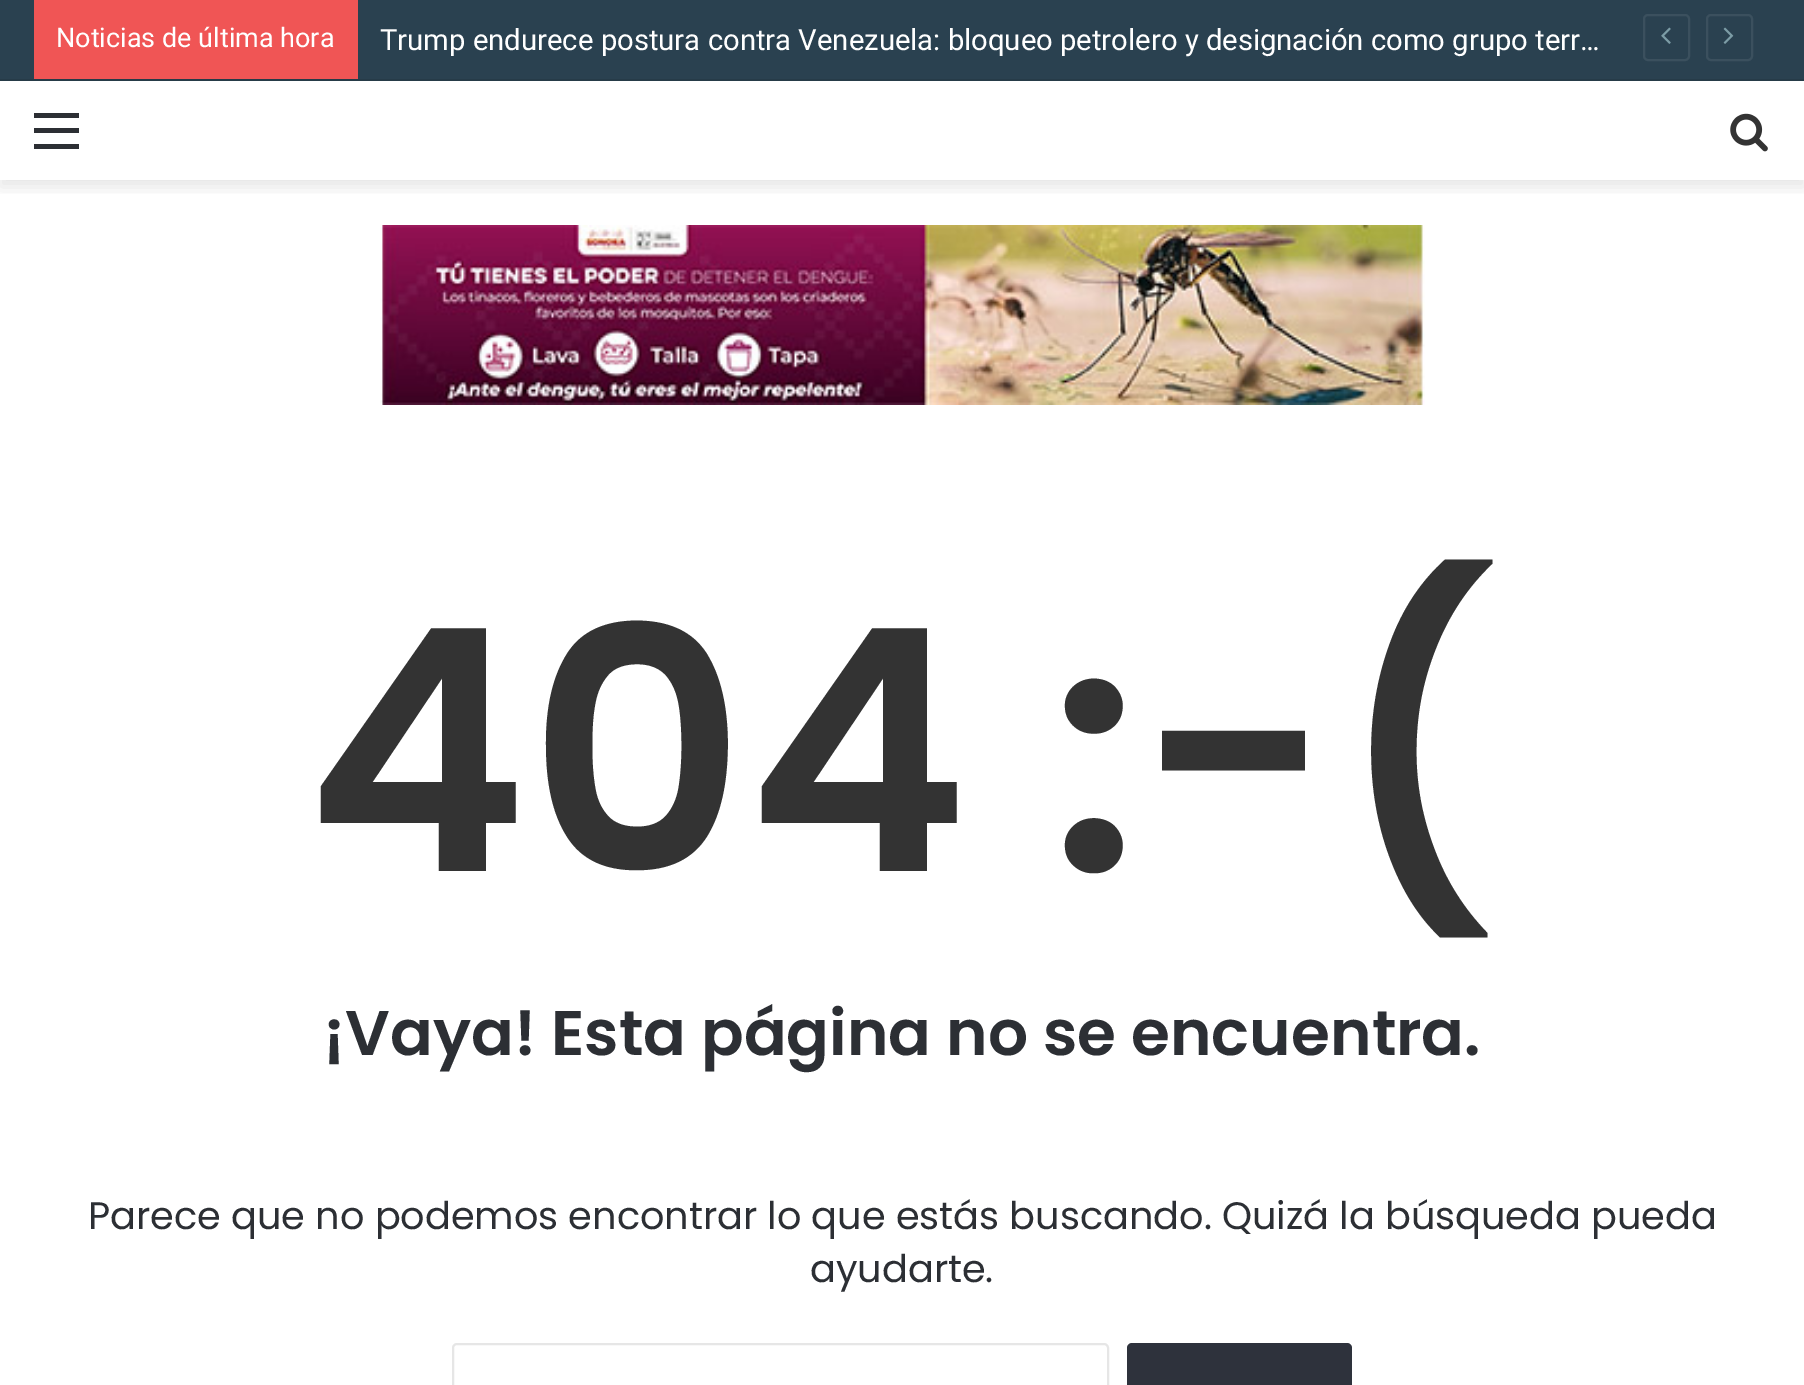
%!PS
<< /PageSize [1804 1385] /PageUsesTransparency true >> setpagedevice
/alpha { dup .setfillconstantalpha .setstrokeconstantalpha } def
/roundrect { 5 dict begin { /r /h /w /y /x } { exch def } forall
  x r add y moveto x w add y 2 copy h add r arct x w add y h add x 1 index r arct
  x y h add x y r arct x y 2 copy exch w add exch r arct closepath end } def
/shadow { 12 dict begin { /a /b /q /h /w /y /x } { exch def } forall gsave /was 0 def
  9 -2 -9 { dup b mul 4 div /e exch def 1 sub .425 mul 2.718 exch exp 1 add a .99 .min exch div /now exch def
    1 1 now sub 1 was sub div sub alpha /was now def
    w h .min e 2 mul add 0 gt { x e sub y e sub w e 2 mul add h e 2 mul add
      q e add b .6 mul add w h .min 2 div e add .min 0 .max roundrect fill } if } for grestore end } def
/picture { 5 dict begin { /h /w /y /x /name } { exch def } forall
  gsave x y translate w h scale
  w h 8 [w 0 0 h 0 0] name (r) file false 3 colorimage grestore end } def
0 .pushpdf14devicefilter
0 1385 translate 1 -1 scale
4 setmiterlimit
1 setgray
0 0 1804 1385 rectfill
gsave
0 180 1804 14 rectclip
0 setgray
0 88 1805 99 0 8 0.1 shadow
grestore
0.165 0.255 0.314 setrgbcolor
0 0 1804 79 rectfill
0.149 0.231 0.282 setrgbcolor
0 79 1804 2 rectfill
0.941 0.333 0.333 setrgbcolor
34 0 324 79 rectfill
/Roboto-Regular [27 0 0 -27 0 0] selectfont
1 setgray
56 47 moveto (Noticias de última hora) show
/Roboto-Regular [29.25 0 0 -29.25 0 0] selectfont
380 50 moveto (Trump endurece postura contra Venezuela: bloqueo petrolero y designación como grupo terr…) show
0.231 0.314 0.369 setrgbcolor
2 setlinewidth
1644 15 45 45 4 roundrect stroke
(img1.rgb) 1661 27 10 17 picture
1707 15 45 45 4 roundrect stroke
(img2.rgb) 1723 27 11 17 picture
0.173 0.184 0.204 setrgbcolor
34 128 45 5 rectfill
34 113 45 5 rectfill
34 144 45 5 rectfill
(img3.rgb) 1730 113 38 39 picture
(img4.rgb) 380 225 1045 180 picture
/Poppins-SemiBold [337.5 0 0 -337.5 0 0] selectfont
0.2 setgray
305 871 moveto (404 :-\() show
/Poppins-SemiBold [63 0 0 -63 0 0] selectfont
0.173 0.184 0.204 setrgbcolor
323 1055 moveto (¡Vaya! Esta página no se encuentra.) show
/Poppins-Regular [38.25 0 0 -38.25 0 0] selectfont
88 1229 moveto (Parece que no podemos encontrar lo que estás buscando. Quizá la búsqueda pueda) show
810 1282 moveto (ayudarte.) show
0.902 setgray
453 1344 655 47 4 roundrect stroke
0.18 0.196 0.235 setrgbcolor
1127 1343 225 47 5 roundrect fill
.poppdf14devicefilter showpage
